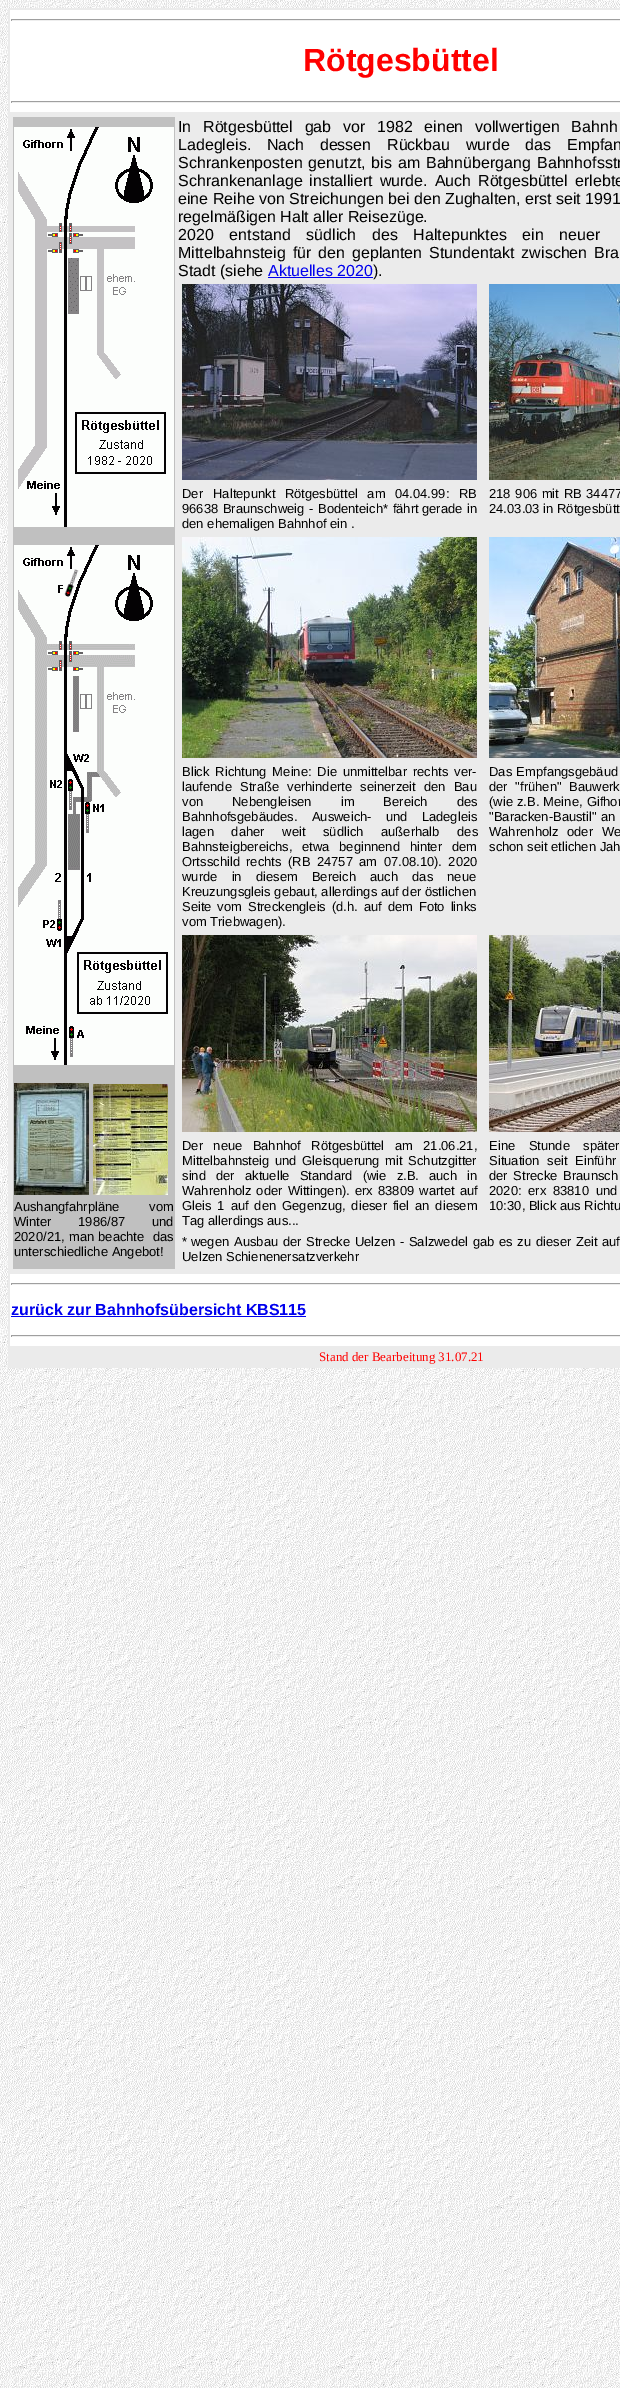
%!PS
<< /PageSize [620 2388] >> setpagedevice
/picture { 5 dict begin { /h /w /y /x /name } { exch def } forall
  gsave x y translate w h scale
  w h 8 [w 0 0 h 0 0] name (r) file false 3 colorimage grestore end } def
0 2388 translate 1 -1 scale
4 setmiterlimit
1 setgray
0 0 620 2388 rectfill
(img1.rgb) 0 0 620 2388 picture
0.922 setgray
8 8 612 1360 rectfill
1 setgray
10 10 610 102 rectfill
0.624 setgray
11 19 609 1 rectfill
0.933 setgray
11 20 609 1 rectfill
0.624 setgray
11 19 1 2 rectfill
/LiberationSans-Bold [32 0 0 -32 0 0] selectfont
1 0 0 setrgbcolor
303 71 moveto (Rötgesbüttel) show
0.624 setgray
11 101 609 1 rectfill
0.933 setgray
11 102 609 1 rectfill
0.624 setgray
11 101 1 2 rectfill
0.753 setgray
13 117 162 1152 rectfill
(img2.rgb) 14 127 160 400 picture
(img3.rgb) 14 545 160 520 picture
(img4.rgb) 14 1083 75 112 picture
(img5.rgb) 93 1084 75 111 picture
/LiberationSans-Regular [13 0 0 -13 0 0] selectfont
0 setgray
14 1211 moveto 26 0 32 (Aushangfahrpläne vom) widthshow
14 1226 moveto 23 0 32 (Winter 1986/87 und) widthshow
14 1241 moveto 0.5 0 32 (2020/21, man beachte  das) widthshow
14 1256 moveto (unterschiedliche Angebot!) show
/LiberationSans-Regular [16 0 0 -16 0 0] selectfont
178 132 moveto 7.25 0 32 (In Rötgesbüttel gab vor 1982 einen) widthshow
475 132 moveto 7.25 0 32 (vollwertigen Bahnh) widthshow
178 150 moveto 11.25 0 32 (Ladegleis. Nach dessen Rückbau wurde das) widthshow
567 150 moveto 11.25 0 32 (Empfan) widthshow
178 168 moveto 1.5 0 32 (Schrankenposten genutzt, bis am Bahnübergang) widthshow
537 168 moveto 1.5 0 32 (Bahnhofsstr) widthshow
178 186 moveto 2.5 0 32 (Schrankenanlage installiert wurde. Auch Rötgesbüttel) widthshow
575 186 moveto 2.5 0 32 (erlebte) widthshow
178 204 moveto (eine Reihe von Streichungen bei den Zughalten, erst seit 1991) show
178 222 moveto (regelmäßigen Halt aller Reisezüge.) show
178 240 moveto 11.25 0 32 (2020 entstand südlich des Haltepunktes ein neuer) widthshow
178 258 moveto 2.5 0 32 (Mittelbahnsteig für den geplanten Stundentakt zwischen Bra) widthshow
178 276 moveto (Stadt \(siehe) show
0 0 0.933 setrgbcolor
268 276 moveto (Aktuelles 2020) show
268 277 105 1 rectfill
0 setgray
373 276 moveto (\).) show
(img6.rgb) 182 284 295 196 picture
(img7.rgb) 489 284 131 196 picture
/LiberationSans-Regular [13 0 0 -13 0 0] selectfont
182 498 moveto (Der) show
213 498 moveto 6 0 32 (Haltepunkt Rötgesbüttel am 04.04.99: RB) widthshow
182 513 moveto 1 0 32 (96638 Braunschweig - Bodenteich* fährt) widthshow
422 513 moveto 1 0 32 (gerade in) widthshow
182 528 moveto (den ehemaligen Bahnhof ein .) show
489 498 moveto 1 0 32 (218 906 mit RB 34477) widthshow
489 513 moveto (24.03.03 in Rötgesbütt) show
(img8.rgb) 182 537 295 221 picture
(img9.rgb) 489 537 131 221 picture
182 776 moveto 2.25 0 32 (Blick Richtung Meine: Die unmittelbar rechts ver-) widthshow
182 791 moveto 4.5 0 32 (laufende Straße verhinderte seinerzeit den Bau) widthshow
182 806 moveto 25.5 0 32 (von Nebengleisen im Bereich des) widthshow
182 821 moveto 10.5 0 32 (Bahnhofsgebäudes. Ausweich- und Ladegleis) widthshow
182 836 moveto 14 0 32 (lagen daher weit südlich außerhalb des) widthshow
182 851 moveto 6 0 32 (Bahnsteigbereichs, etwa beginnend hinter dem) widthshow
182 866 moveto 2.75 0 32 (Ortsschild rechts \(RB 24757 am 07.08.10\). 2020) widthshow
182 881 moveto 10.5 0 32 (wurde in diesem Bereich auch das neue) widthshow
182 896 moveto (Kreuzungsgleis gebaut, allerdings auf der östlichen) show
182 911 moveto 2.25 0 32 (Seite vom Streckengleis \(d.h. auf dem Foto links) widthshow
182 926 moveto (vom Triebwagen\).) show
489 776 moveto 0.5 0 32 (Das Empfangsgebäud) widthshow
489 791 moveto 4 0 32 (der "frühen" Bauwerk) widthshow
489 806 moveto 0.5 0 32 (\(wie z.B. Meine, Gifhor) widthshow
489 821 moveto 1 0 32 ("Baracken-Baustil" an) widthshow
489 836 moveto 5 0 32 (Wahrenholz oder We) widthshow
489 851 moveto (schon seit etlichen Jah) show
(img10.rgb) 182 935 295 197 picture
(img11.rgb) 489 935 131 197 picture
182 1150 moveto 6.75 0 32 (Der neue Bahnhof Rötgesbüttel am 21.06.21,) widthshow
182 1165 moveto 2 0 32 (Mittelbahnsteig und Gleisquerung mit Schutzgitter) widthshow
182 1180 moveto 6.5 0 32 (sind der aktuelle Standard \(wie z.B. auch in) widthshow
182 1195 moveto 1.5 0 32 (Wahrenholz oder Wittingen\). erx 83809 wartet auf) widthshow
182 1210 moveto 2.25 0 32 (Gleis 1 auf den Gegenzug, dieser fiel an diesem) widthshow
182 1225 moveto (Tag allerdings aus...) show
489 1150 moveto 10 0 32 (Eine Stunde später) widthshow
489 1165 moveto 4 0 32 (Situation seit Einführ) widthshow
489 1180 moveto 2 0 32 (der Strecke Braunsch) widthshow
489 1195 moveto 3 0 32 (2020: erx 83810 und) widthshow
489 1210 moveto (10:30, Blick aus Richtu) show
182 1246 moveto (* wegen) show
234 1246 moveto 1 0 32 (Ausbau der Strecke Uelzen - Salzwedel gab) widthshow
499 1246 moveto 1 0 32 (es zu dieser Zeit auf) widthshow
182 1261 moveto (Uelzen Schienenersatzverkehr) show
1 setgray
10 1274 610 72 rectfill
0.624 setgray
11 1283 609 1 rectfill
0.933 setgray
11 1284 609 1 rectfill
0.624 setgray
11 1283 1 2 rectfill
/LiberationSans-Bold [16 0 0 -16 0 0] selectfont
0 0 0.933 setrgbcolor
11 1315 moveto (zurück zur Bahnhofsübersicht KBS115) show
11 1316 295 1 rectfill
0.624 setgray
11 1335 609 1 rectfill
0.933 setgray
11 1336 609 1 rectfill
0.624 setgray
11 1335 1 2 rectfill
/LiberationSerif-Regular [13 0 0 -13 0 0] selectfont
1 0 0 setrgbcolor
319 1361 moveto (Stand der Bearbeitung 31.07.21) show
showpage
